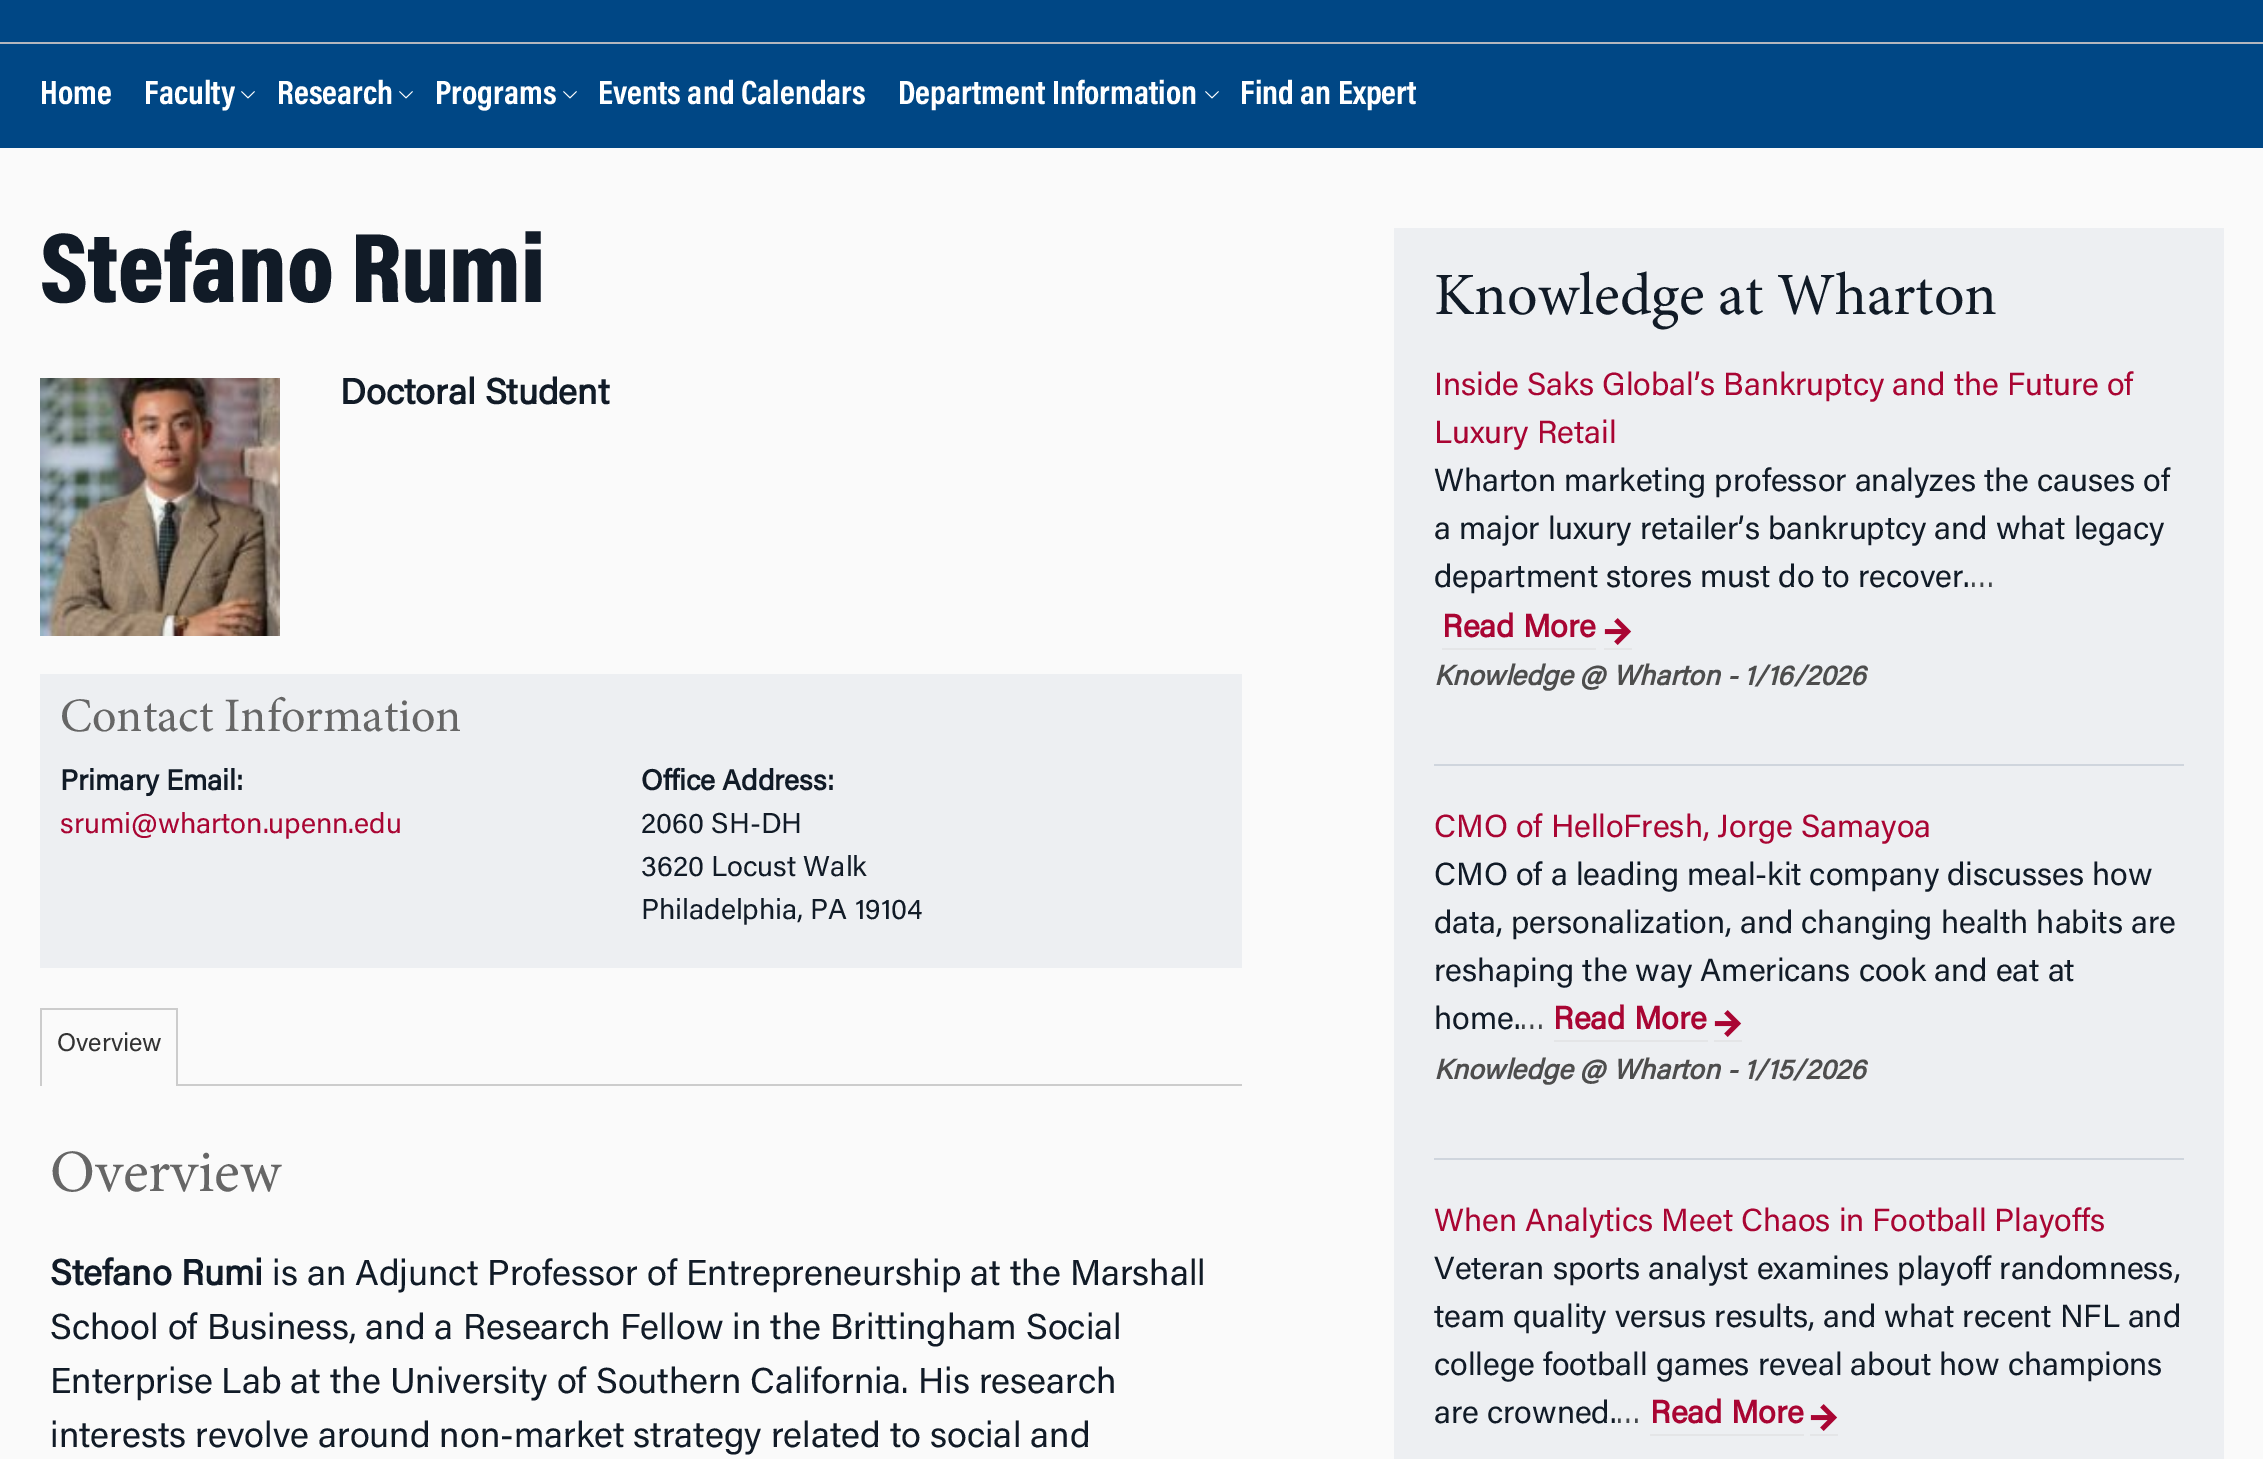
%!PS
<< /PageSize [2263 1459] >> setpagedevice
/picture { 5 dict begin { /h /w /y /x /name } { exch def } forall
  gsave x y translate w h scale
  w h 8 [w 0 0 h 0 0] name (r) file false 3 colorimage grestore end } def
0 1459 translate 1 -1 scale
4 setmiterlimit
0.98 setgray
0 0 2263 1459 rectfill
0 0.278 0.522 setrgbcolor
0 0 2263 148 rectfill
0.706 0.718 0.745 setrgbcolor
0 42 2263 2 rectfill
/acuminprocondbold-Bold [34 0 0 -34 0 0] selectfont
1 setgray
40 104 moveto (Home) show
144 104 moveto (Faculty) show
(img1.rgb) 241 91 14 8 picture
277 104 moveto (Research) show
(img1.rgb) 399 91 14 8 picture
435 104 moveto (Programs) show
(img1.rgb) 563 91 14 8 picture
598 104 moveto (Events and Calendars) show
898 104 moveto (Department Information) show
(img1.rgb) 1205 91 14 8 picture
1240 104 moveto (Find an Expert) show
/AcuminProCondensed-Black [100 0 0 -100 0 0] selectfont
0.067 0.106 0.153 setrgbcolor
40 302 moveto (Stefano Rumi) show
(img2.rgb) 40 378 240 258 picture
/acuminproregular-Bold [36 0 0 -36 0 0] selectfont
340 404 moveto (Doctoral Student) show
0.929 0.937 0.949 setrgbcolor
40 674 1202 294 rectfill
/minion-Regular [48 0 0 -48 0 0] selectfont
0.4 setgray
60 731 moveto (Contact Information) show
/acuminproregular-Bold [28.75 0 0 -28.75 0 0] selectfont
0.067 0.106 0.153 setrgbcolor
60 790 moveto (Primary Email:) show
/acuminproregular-Regular [28.75 0 0 -28.75 0 0] selectfont
0.663 0.02 0.2 setrgbcolor
60 833 moveto (srumi@wharton.upenn.edu) show
/acuminproregular-Bold [28.75 0 0 -28.75 0 0] selectfont
0.067 0.106 0.153 setrgbcolor
641 790 moveto (Office Address:) show
/acuminproregular-Regular [28.75 0 0 -28.75 0 0] selectfont
641 833 moveto (2060 SH-DH) show
641 876 moveto (3620 Locust Walk) show
641 919 moveto (Philadelphia, PA 19104) show
0.8 setgray
40 1008 138 2 rectfill
176 1008 2 78 rectfill
40 1008 2 78 rectfill
/acuminproregular-Regular [25.5 0 0 -25.5 0 0] selectfont
0.2 setgray
57 1051 moveto (Overview) show
0.8 setgray
178 1084 1064 2 rectfill
/minion-Regular [60 0 0 -60 0 0] selectfont
0.4 setgray
50 1191 moveto (Overview) show
/acuminproregular-Bold [36 0 0 -36 0 0] selectfont
0.067 0.106 0.153 setrgbcolor
50 1285 moveto (Stefano Rumi) show
/acuminproregular-Regular [36 0 0 -36 0 0] selectfont
272 1285 moveto (is an Adjunct Professor of Entrepreneurship at the Marshall) show
50 1339 moveto (School of Business, and a Research Fellow in the Brittingham Social) show
50 1393 moveto (Enterprise Lab at the University of Southern California. His research) show
50 1447 moveto (interests revolve around non-market strategy related to social and) show
0.929 0.937 0.949 setrgbcolor
1394 228 830 1231 rectfill
/minion-Regular [60 0 0 -60 0 0] selectfont
0.067 0.106 0.153 setrgbcolor
1434 314 moveto (Knowledge at Wharton) show
0.812 0.835 0.867 setrgbcolor
1434 764 750 2 rectfill
/acuminproregular-Regular [32 0 0 -32 0 0] selectfont
0.663 0.02 0.2 setrgbcolor
1434 395 moveto (Inside Saks Global’s Bankruptcy and the Future of) show
1434 443 moveto (Luxury Retail) show
0.067 0.106 0.153 setrgbcolor
1434 491 moveto (Wharton marketing professor analyzes the causes of) show
1434 539 moveto (a major luxury retailer’s bankruptcy and what legacy) show
1434 587 moveto (department stores must do to recover.) show
/acuminproregular-Regular [30 0 0 -30 0 0] selectfont
0.267 0.282 0.294 setrgbcolor
1970 587 moveto (…) show
/acuminproregular-Bold [32 0 0 -32 0 0] selectfont
0.663 0.02 0.2 setrgbcolor
1442 637 moveto (Read More) show
0.894 0.898 0.906 setrgbcolor
1442 648 154 2 rectfill
1604 648 28 2 rectfill
(img3.rgb) 1604 618 28 27 picture
/acuminproregular-BoldItalic [28 0 0 -28 0 0] selectfont
0.302 setgray
1434 685 moveto (Knowledge @ Wharton - 1/16/2026) show
0.812 0.835 0.867 setrgbcolor
1434 1158 750 2 rectfill
/acuminproregular-Regular [32 0 0 -32 0 0] selectfont
0.663 0.02 0.2 setrgbcolor
1434 837 moveto (CMO of HelloFresh, Jorge Samayoa) show
0.067 0.106 0.153 setrgbcolor
1434 885 moveto (CMO of a leading meal-kit company discusses how) show
1434 933 moveto (data, personalization, and changing health habits are) show
1434 981 moveto (reshaping the way Americans cook and eat at) show
1434 1029 moveto (home.) show
/acuminproregular-Regular [30 0 0 -30 0 0] selectfont
0.267 0.282 0.294 setrgbcolor
1520 1029 moveto (…) show
/acuminproregular-Bold [32 0 0 -32 0 0] selectfont
0.663 0.02 0.2 setrgbcolor
1553 1029 moveto (Read More) show
0.894 0.898 0.906 setrgbcolor
1554 1040 154 2 rectfill
1714 1040 28 2 rectfill
(img3.rgb) 1714 1010 28 27 picture
/acuminproregular-BoldItalic [28 0 0 -28 0 0] selectfont
0.302 setgray
1434 1079 moveto (Knowledge @ Wharton - 1/15/2026) show
/acuminproregular-Regular [32 0 0 -32 0 0] selectfont
0.663 0.02 0.2 setrgbcolor
1434 1231 moveto (When Analytics Meet Chaos in Football Playoffs) show
0.067 0.106 0.153 setrgbcolor
1434 1279 moveto (Veteran sports analyst examines playoff randomness,) show
1434 1327 moveto (team quality versus results, and what recent NFL and) show
1434 1375 moveto (college football games reveal about how champions) show
1434 1423 moveto (are crowned.) show
/acuminproregular-Regular [30 0 0 -30 0 0] selectfont
0.267 0.282 0.294 setrgbcolor
1616 1423 moveto (…) show
/acuminproregular-Bold [32 0 0 -32 0 0] selectfont
0.663 0.02 0.2 setrgbcolor
1650 1423 moveto (Read More) show
0.894 0.898 0.906 setrgbcolor
1650 1434 154 2 rectfill
1810 1434 28 2 rectfill
(img3.rgb) 1810 1404 28 27 picture
showpage
